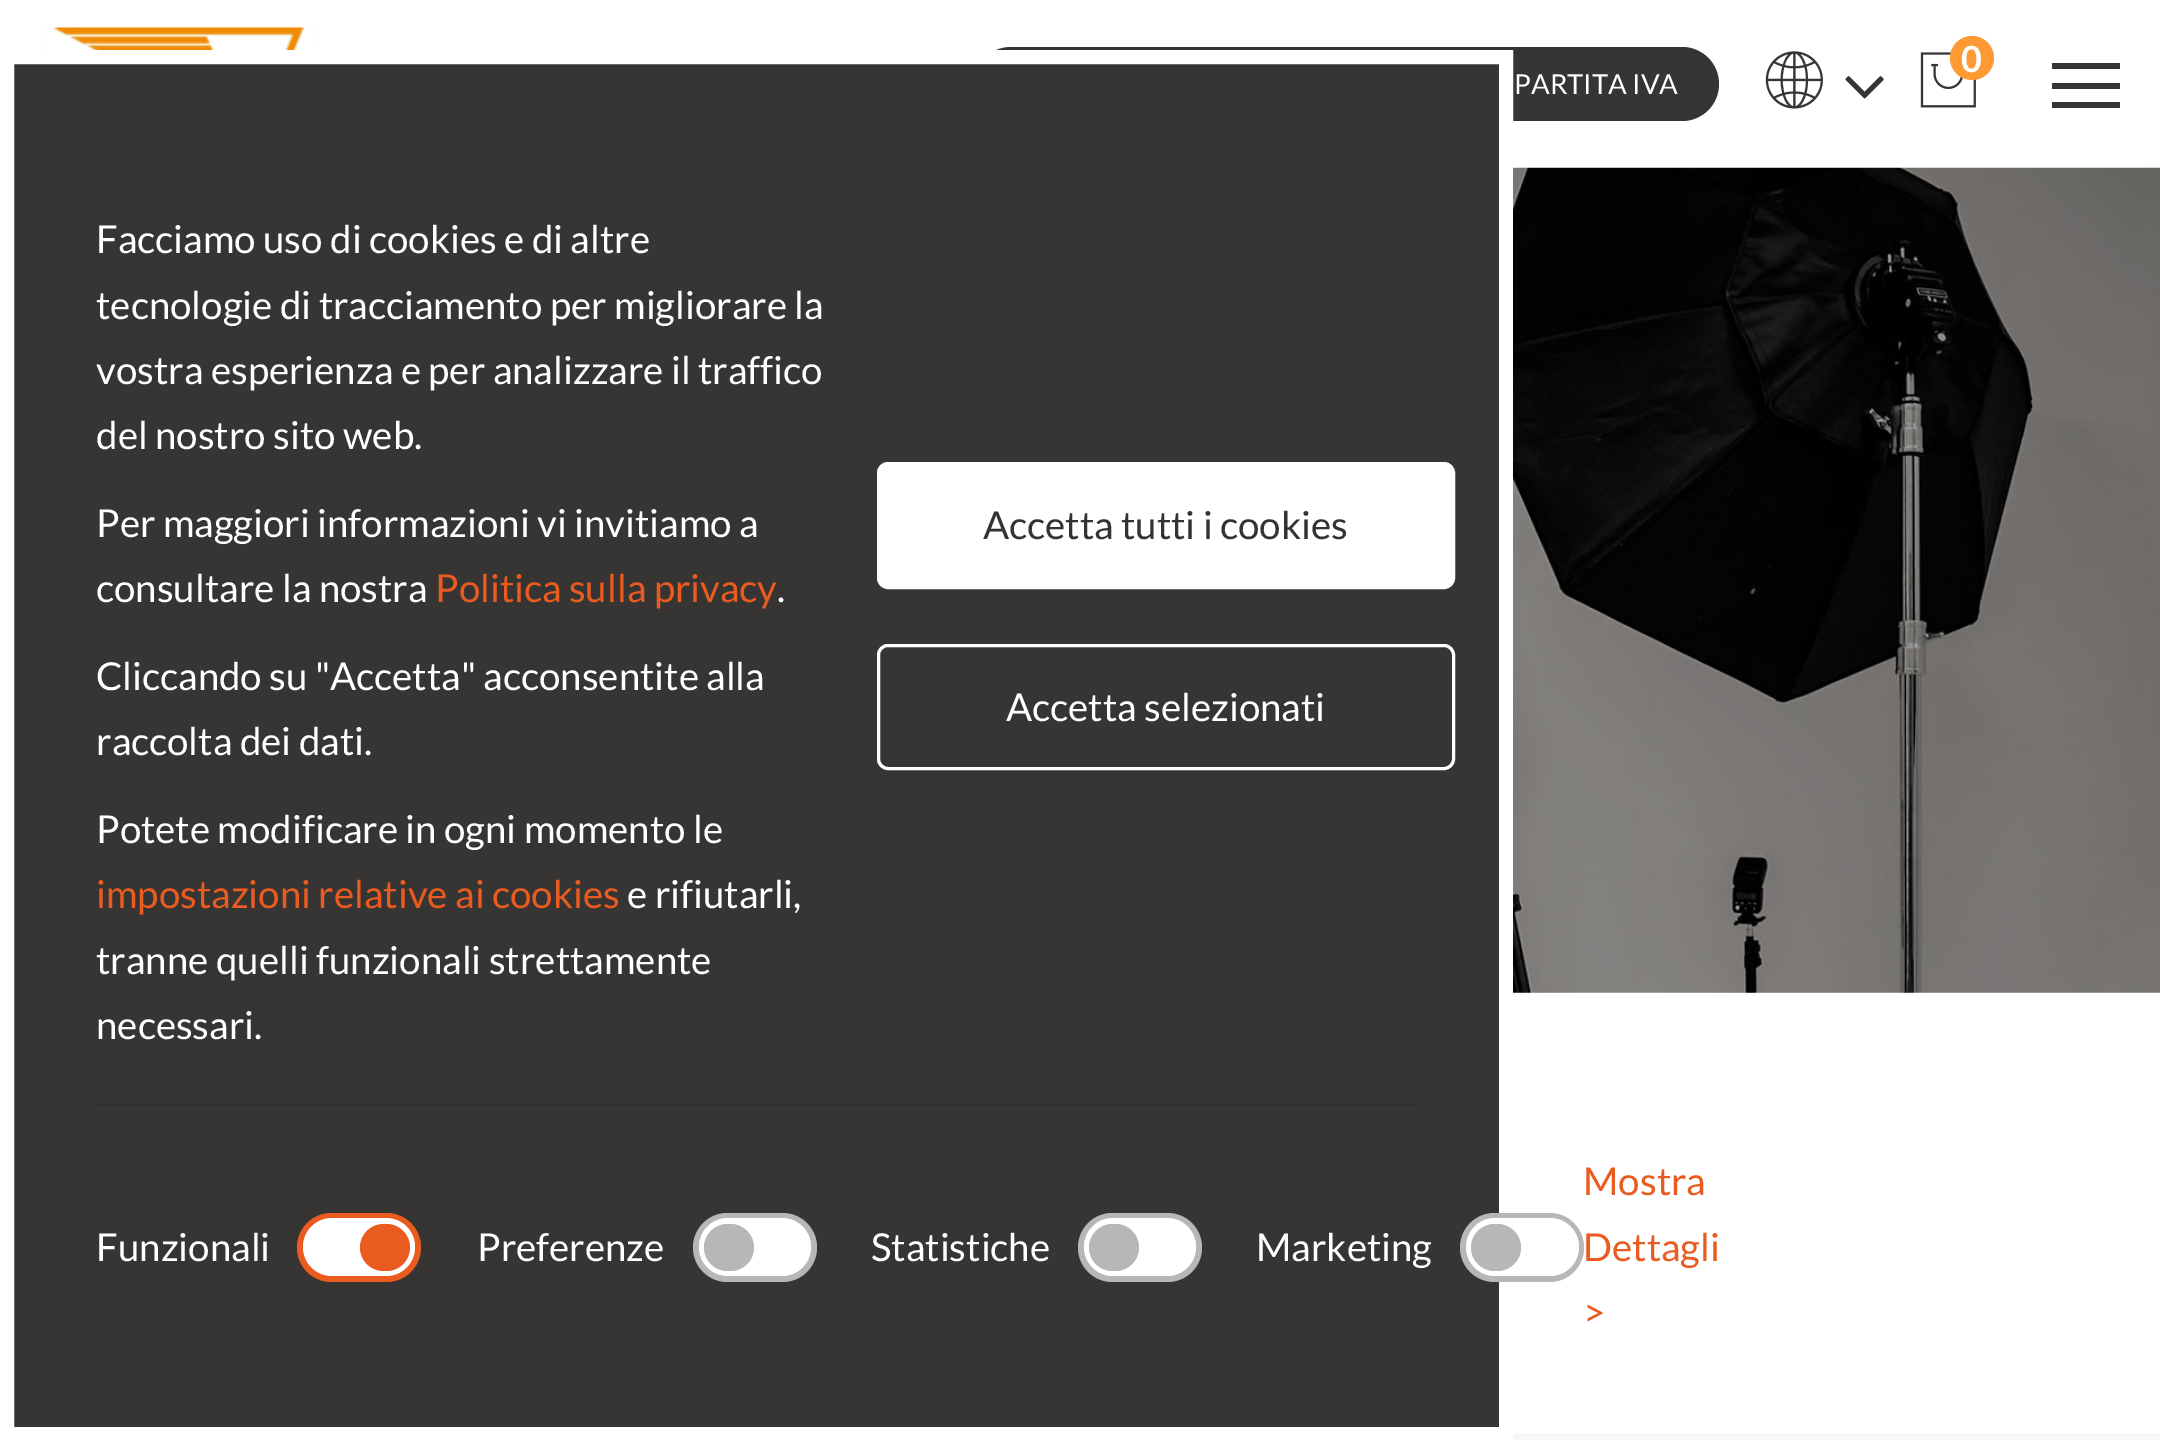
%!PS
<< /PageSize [2160 1440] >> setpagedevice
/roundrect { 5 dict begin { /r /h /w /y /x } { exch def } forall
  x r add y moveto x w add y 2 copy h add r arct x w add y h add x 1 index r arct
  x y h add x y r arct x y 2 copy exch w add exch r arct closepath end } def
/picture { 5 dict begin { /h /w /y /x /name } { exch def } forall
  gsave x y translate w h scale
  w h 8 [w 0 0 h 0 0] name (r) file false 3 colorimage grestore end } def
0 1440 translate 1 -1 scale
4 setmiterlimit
1 setgray
0 0 2160 1440 rectfill
(img1.rgb) 41 27 276 23 picture
(img2.rgb) 1765 51 58 58 picture
(img3.rgb) 1845 76 39 23 picture
(img4.rgb) 1920 52 56 56 picture
1 0.6 0.204 setrgbcolor
newpath 1972 58 22 0 360 arc closepath fill
/Lato-Bold [36 0 0 -36 0 0] selectfont
1 setgray
1961 72 moveto (0) show
0.216 0.204 0.204 setrgbcolor
974 47 745 74 37 roundrect fill
/Lato-Regular [27.5 0 0 -27.5 0 0] selectfont
1 setgray
1514 94 moveto (PARTITA IVA) show
0.216 0.204 0.204 setrgbcolor
2052 63 68 6 rectfill
2052 83 68 6 rectfill
2052 102 68 6 rectfill
newpath 7 57 moveto 1506 57 lineto 1506 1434 lineto 7 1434 lineto closepath gsave fill grestore
1 setgray
14 setlinewidth
stroke
/Lato-Regular [38.5 0 0 -38.5 0 0] selectfont
96 253 moveto (Facciamo uso di cookies e di altre) show
96 319 moveto (tecnologie di tracciamento per migliorare la) show
96 384 moveto (vostra esperienza e per analizzare il traffico) show
96 449 moveto (del nostro sito web.) show
96 537 moveto (Per maggiori informazioni vi invitiamo a) show
96 602 moveto (consultare la nostra) show
0.918 0.357 0.122 setrgbcolor
435 602 moveto (Politica sulla privacy) show
1 setgray
777 602 moveto (.) show
96 690 moveto (Cliccando su "Accetta" acconsentite alla) show
96 755 moveto (raccolta dei dati.) show
96 843 moveto (Potete modificare in ogni momento le) show
0.918 0.357 0.122 setrgbcolor
96 908 moveto (impostazioni relative ai cookies) show
1 setgray
627 908 moveto (e rifiutarli,) show
96 974 moveto (tranne quelli funzionali strettamente) show
96 1039 moveto (necessari.) show
878.5 463.5 575 124 9.5 roundrect gsave fill grestore
3 setlinewidth
stroke
0.2 setgray
983 539 moveto (Accetta tutti i cookies) show
1 setgray
878.5 645.5 575 123 9.5 roundrect stroke
1006 721 moveto (Accetta selezionati) show
0.196 0.184 0.184 setrgbcolor
96 1103 1320 3 rectfill
1 setgray
96 1261 moveto (Funzionali) show
0.918 0.357 0.122 setrgbcolor
297 1213 124 69 34.5 roundrect fill
1 setgray
303 1218 112 58 29 roundrect fill
0.918 0.357 0.122 setrgbcolor
360 1224 50 47 23.5 roundrect fill
1 setgray
477 1261 moveto (Preferenze) show
0.718 setgray
693 1213 124 69 34.5 roundrect fill
1 setgray
699 1218 112 58 29 roundrect fill
0.718 setgray
704 1224 50 47 23.5 roundrect fill
1 setgray
871 1261 moveto (Statistiche) show
0.718 setgray
1078 1213 124 69 34.5 roundrect fill
1 setgray
1084 1218 112 58 29 roundrect fill
0.718 setgray
1089 1224 50 47 23.5 roundrect fill
1 setgray
1256 1261 moveto (Marketing) show
0.718 setgray
1460 1213 124 69 34.5 roundrect fill
1 setgray
1466 1218 113 58 29 roundrect fill
0.718 setgray
1471 1224 50 47 23.5 roundrect fill
0.918 0.357 0.122 setrgbcolor
1583 1195 moveto (Mostra) show
1583 1261 moveto (Dettagli) show
1583 1326 moveto (>) show
(img5.rgb) 1513 167 647 826 picture
0.969 setgray
1513 1433 647 7 rectfill
showpage
